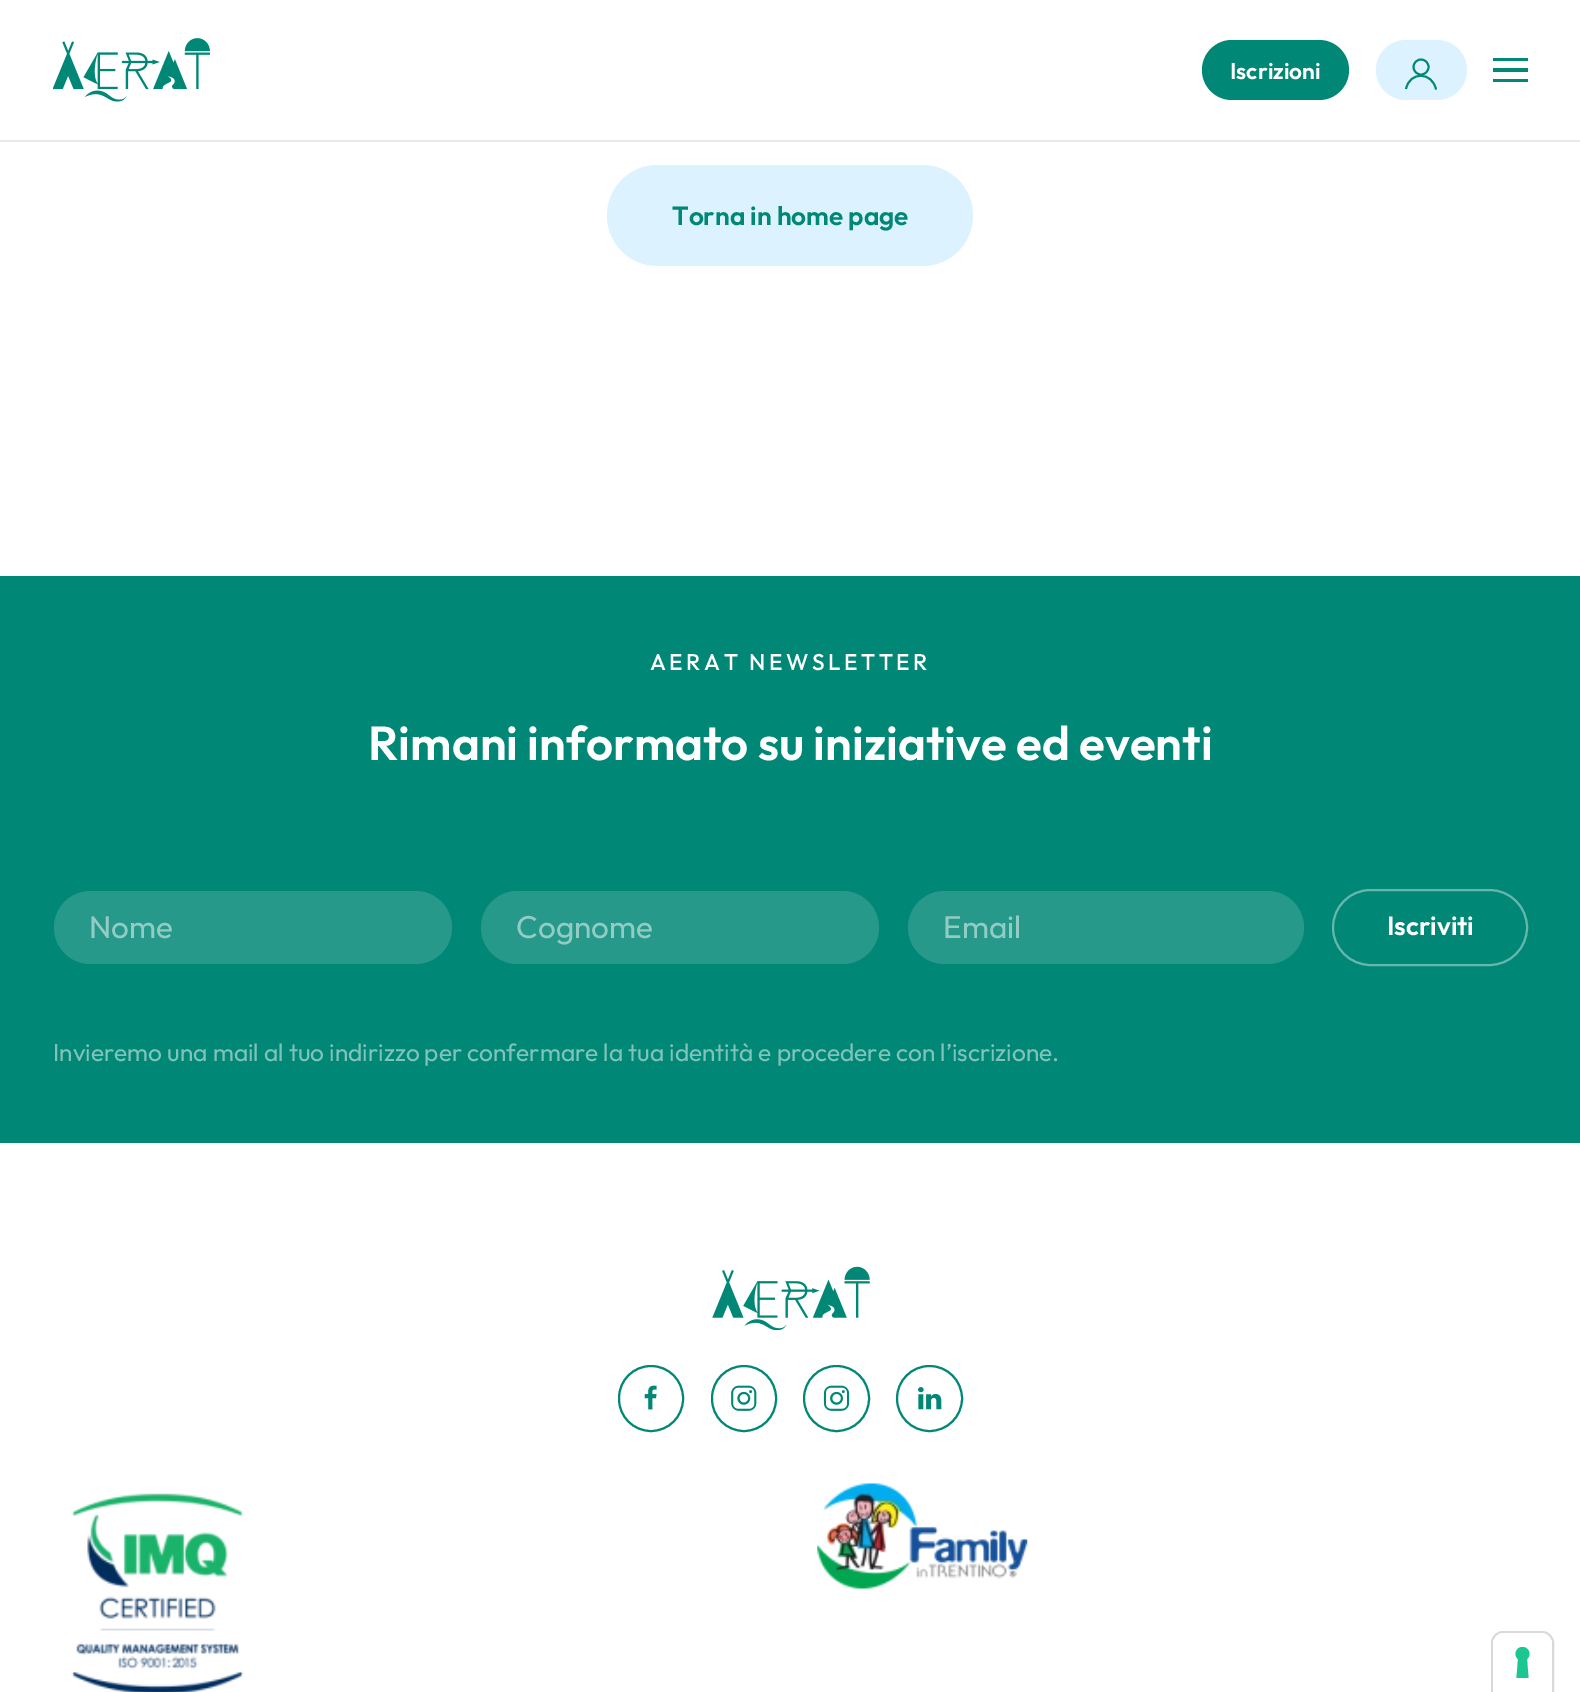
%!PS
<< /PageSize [1580 1692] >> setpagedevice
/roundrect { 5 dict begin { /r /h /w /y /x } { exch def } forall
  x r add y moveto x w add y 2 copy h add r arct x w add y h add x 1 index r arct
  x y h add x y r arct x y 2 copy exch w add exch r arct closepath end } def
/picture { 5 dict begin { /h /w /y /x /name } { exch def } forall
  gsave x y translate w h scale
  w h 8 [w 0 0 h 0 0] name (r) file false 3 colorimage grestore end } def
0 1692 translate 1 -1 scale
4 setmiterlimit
1 setgray
0 0 1580 1692 rectfill
0.91 setgray
0 140 1580 2 rectfill
(img1.rgb) 53 38 157 64 picture
0 0.529 0.463 setrgbcolor
1202 40 147 60 30 roundrect fill
/Outfit-Thin [22.75 0 0 -22.75 0 0] selectfont
1 setgray
1230 79 moveto (Iscrizioni) show
0.863 0.953 1 setrgbcolor
1376 40 91 60 30 roundrect fill
0 0.529 0.463 setrgbcolor
1.9 setlinewidth
newpath 1421 67 7.5 0 360 arc closepath stroke
newpath 1406 89 moveto 1409.5 71 1432.5 71.5 1436 89.5 curveto stroke
1493 58 35 3 rectfill
1493 68 35 4 rectfill
1493 79 35 3 rectfill
0.863 0.953 1 setrgbcolor
607 165 366 101 50.5 roundrect fill
/Outfit-Thin [26.25 0 0 -26.25 0 0] selectfont
0 0.529 0.463 setrgbcolor
672 225 moveto (Torna in home page) show
0 576 1580 567 rectfill
/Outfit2-Thin [22.75 0 0 -22.75 0 0] selectfont
1 setgray
650 670 moveto 3.5 0 (AERAT NEWSLETTER) ashow
/Outfit-Thin [47.6 0 0 -47.6 0 0] selectfont
368 760 moveto (Rimani informato su iniziative ed eventi) show
0.149 0.6 0.545 setrgbcolor
54 891 398 73 36.5 roundrect fill
/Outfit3-Thin [31.5 0 0 -31.5 0 0] selectfont
0.576 0.8 0.773 setrgbcolor
89 938 moveto (Nome) show
0.149 0.6 0.545 setrgbcolor
481 891 398 73 36.5 roundrect fill
0.576 0.8 0.773 setrgbcolor
516 938 moveto (Cognome) show
0.149 0.6 0.545 setrgbcolor
908 891 396 73 36.5 roundrect fill
0.576 0.8 0.773 setrgbcolor
943 938 moveto (Email) show
0.4 0.718 0.678 setrgbcolor
2 setlinewidth
1333 890 194 75 37.5 roundrect stroke
/Outfit-Thin [26.25 0 0 -26.25 0 0] selectfont
1 setgray
1387 935 moveto (Iscriviti) show
/Outfit3-Thin [24.5 0 0 -24.5 0 0] selectfont
0.502 0.765 0.733 setrgbcolor
53 1061 moveto (Invieremo una mail al tuo indirizzo per confermare la tua identità e procedere con l’iscrizione.) show
(img2.rgb) 712 1266 158 64 picture
0 0.529 0.463 setrgbcolor
619 1366 64 65 32 roundrect stroke
(img3.rgb) 644 1385 13 25 picture
712 1366 64 65 32 roundrect stroke
(img4.rgb) 731 1385 26 26 picture
newpath 836.5 1398.5 32.5 0 360 arc closepath stroke
(img5.rgb) 823 1385 27 26 picture
newpath 929.5 1398.5 32.5 0 360 arc closepath stroke
(img6.rgb) 918 1387 24 23 picture
(img7.rgb) 71 1493 173 199 picture
(img8.rgb) 817 1483 211 106 picture
0.851 setgray
newpath 1503 1632 moveto 1542 1632 lineto 1548 1632 1553 1637 1553 1643 curveto 1553 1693 lineto 1492 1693 lineto 1492 1643 lineto 1492 1637 1497 1632 1503 1632 curveto closepath stroke
1 setgray
newpath 1504 1633 moveto 1541 1633 lineto 1547 1633 1552 1638 1552 1644 curveto 1552 1692 lineto 1493 1692 lineto 1493 1644 lineto 1493 1638 1498 1633 1504 1633 curveto closepath fill
0.11 0.776 0.569 setrgbcolor
newpath 1522.5 1647 moveto 1529 1647 1532 1655 1527 1659 curveto 1528.5 1678 lineto 1516.5 1678 lineto 1518 1659 lineto 1513 1655 1516 1647 1522.5 1647 curveto closepath eofill
showpage
